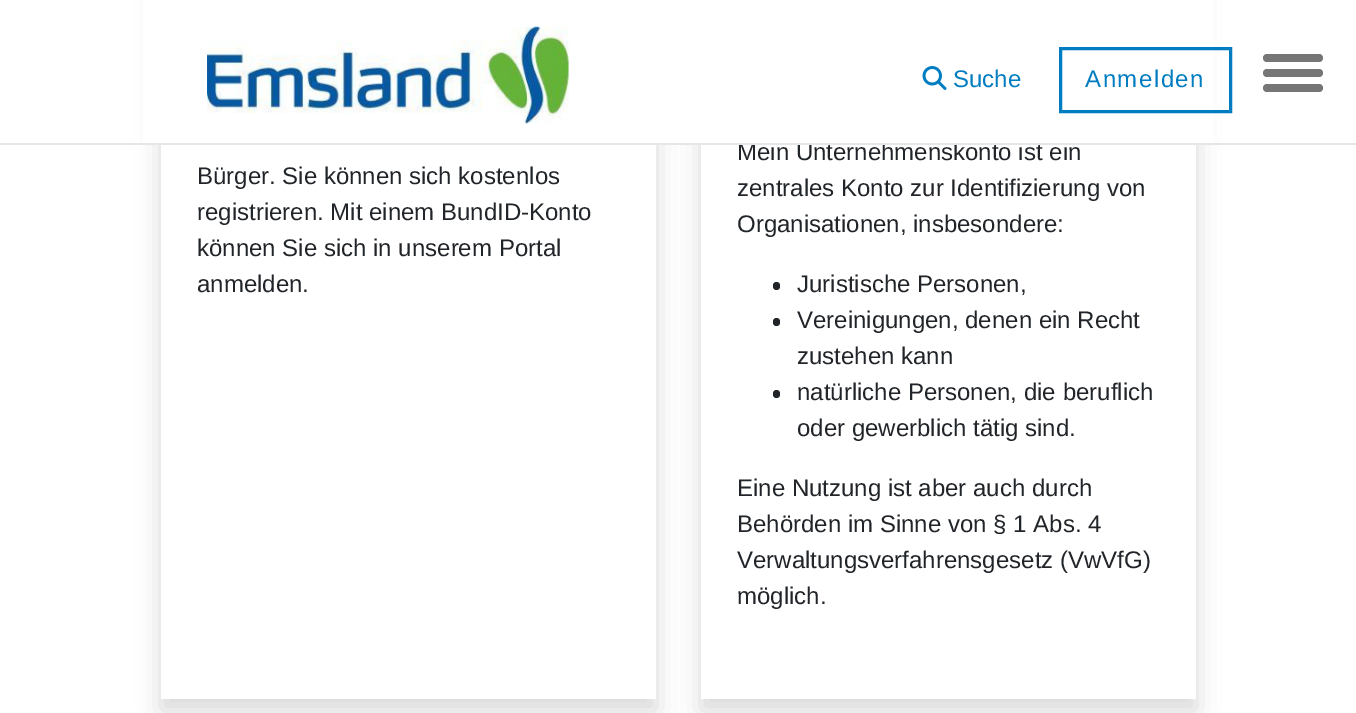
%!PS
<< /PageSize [1356 713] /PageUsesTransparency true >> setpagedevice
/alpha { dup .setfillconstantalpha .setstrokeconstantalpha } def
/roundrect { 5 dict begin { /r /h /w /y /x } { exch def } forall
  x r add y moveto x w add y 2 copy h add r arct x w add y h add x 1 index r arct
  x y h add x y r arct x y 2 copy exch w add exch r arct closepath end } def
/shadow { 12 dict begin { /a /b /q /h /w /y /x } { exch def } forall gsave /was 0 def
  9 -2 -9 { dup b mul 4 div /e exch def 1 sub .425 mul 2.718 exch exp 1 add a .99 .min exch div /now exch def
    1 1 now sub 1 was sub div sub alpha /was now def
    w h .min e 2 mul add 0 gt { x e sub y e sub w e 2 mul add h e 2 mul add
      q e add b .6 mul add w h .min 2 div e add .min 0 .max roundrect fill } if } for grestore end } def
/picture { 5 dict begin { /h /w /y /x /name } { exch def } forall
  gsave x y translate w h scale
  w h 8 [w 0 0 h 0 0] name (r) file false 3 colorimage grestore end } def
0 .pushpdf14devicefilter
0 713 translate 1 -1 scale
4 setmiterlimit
1 setgray
0 0 1356 713 rectfill
0 setgray
161 -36 495 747 0 12 0.15 shadow
701 -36 495 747 0 12 0.15 shadow
1 setgray
701 145 495 554 rectfill
/LiberationSans-Regular [24 0 0 -24 0 0] selectfont
0.129 0.145 0.161 setrgbcolor
737 160 moveto (Mein Unternehmenskonto ist ein) show
1 setgray
143 0 1071 143 rectfill
0.902 setgray
0 143 1356 2 rectfill
(img1.rgb) 207 26 362 98 picture
(img2.rgb) 922 66 25 24 picture
0 0.486 0.757 setrgbcolor
953 87 moveto (Suche) show
3 setlinewidth
1060.5 48.5 170 63 rectstroke
1085 87 moveto 1.5 0 (Anmelden) ashow
0.463 setgray
1263 69 60 8 4 roundrect fill
1263 54 60 8 4 roundrect fill
1263 84 60 8 4 roundrect fill
1 setgray
161 145 495 554 rectfill
0.129 0.145 0.161 setrgbcolor
197 184 moveto (Bürger. Sie können sich kostenlos) show
197 220 moveto (registrieren. Mit einem BundID-Konto) show
197 256 moveto (können Sie sich in unserem Portal) show
197 292 moveto (anmelden.) show
737 196 moveto (zentrales Konto zur Identifizierung von) show
737 232 moveto (Organisationen, insbesondere:) show
773 282 7 8 3.5 roundrect fill
797 292 moveto (Juristische Personen,) show
773 318 7 8 3.5 roundrect fill
797 328 moveto (Vereinigungen, denen ein Recht) show
797 364 moveto (zustehen kann) show
773 390 7 8 3.5 roundrect fill
797 400 moveto (natürliche Personen, die beruflich) show
797 436 moveto (oder gewerblich tätig sind.) show
737 496 moveto (Eine Nutzung ist aber auch durch) show
737 532 moveto (Behörden im Sinne von § 1 Abs. 4) show
737 568 moveto (Verwaltungsverfahrensgesetz \(VwVfG\)) show
737 604 moveto (möglich.) show
.poppdf14devicefilter showpage
